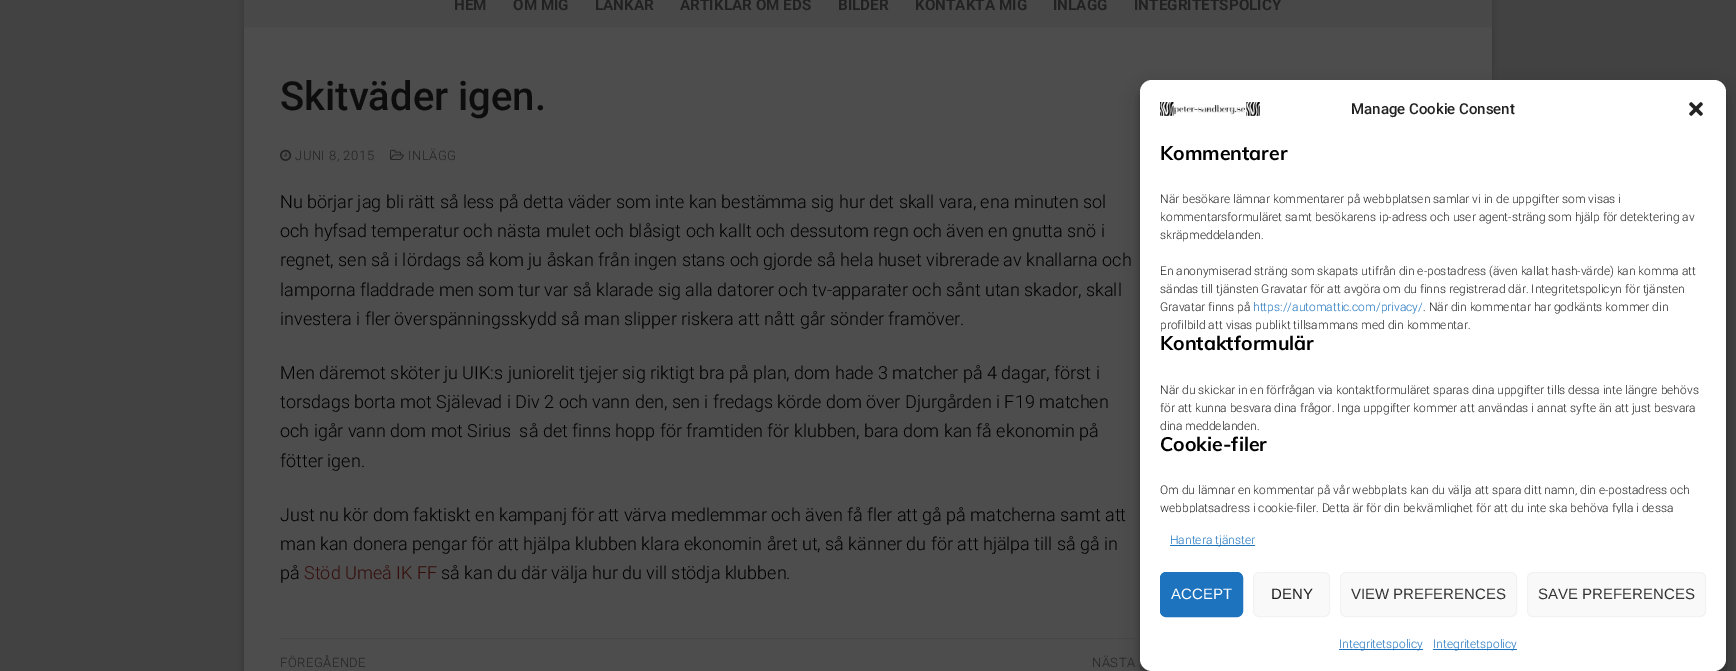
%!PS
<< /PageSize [1736 671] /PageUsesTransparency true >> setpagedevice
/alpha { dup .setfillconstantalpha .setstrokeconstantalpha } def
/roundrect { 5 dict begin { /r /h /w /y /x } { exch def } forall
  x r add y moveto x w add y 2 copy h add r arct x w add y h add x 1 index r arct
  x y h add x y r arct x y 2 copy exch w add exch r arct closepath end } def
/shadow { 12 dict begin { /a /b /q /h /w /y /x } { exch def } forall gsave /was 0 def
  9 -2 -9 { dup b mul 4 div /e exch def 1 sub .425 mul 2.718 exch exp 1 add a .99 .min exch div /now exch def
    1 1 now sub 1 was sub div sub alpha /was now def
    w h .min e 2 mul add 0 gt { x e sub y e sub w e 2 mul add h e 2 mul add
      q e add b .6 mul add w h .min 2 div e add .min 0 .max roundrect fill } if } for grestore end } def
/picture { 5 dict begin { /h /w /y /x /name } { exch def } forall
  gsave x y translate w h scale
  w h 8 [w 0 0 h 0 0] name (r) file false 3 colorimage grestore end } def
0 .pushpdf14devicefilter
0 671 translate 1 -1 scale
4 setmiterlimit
0.259 setgray
0 0 1736 671 rectfill
0 setgray
244 -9 1248 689 0 3 0.23 shadow
0.302 setgray
244 26 1248 645 rectfill
0.267 0.271 0.275 setrgbcolor
244 -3 1248 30 0 1 1 shadow
0.282 setgray
244 0 1248 26 rectfill
/Roboto-Bold [15.25 0 0 -15.25 0 0] selectfont
0.129 setgray
454 10 moveto (HEM) show
513 10 moveto (OM MIG) show
595 10 moveto (LÄNKAR) show
680 10 moveto (ARTIKLAR OM EDS) show
838 10 moveto (BILDER) show
915 10 moveto (KONTAKTA MIG) show
1053 10 moveto (INLÄGG) show
1134 10 moveto (INTEGRITETSPOLICY) show
/Roboto-Medium [40 0 0 -40 0 0] selectfont
0.051 setgray
280 110 moveto (Skitväder igen.) show
(img1.rgb) 280 149 12 12 picture
/Roboto-Light [13 0 0 -13 0 0] selectfont
0.129 setgray
295 160 moveto 0.5 0 (JUNI 8, 2015) ashow
(img2.rgb) 390 149 14 11 picture
408 160 moveto 0.5 0 (INLÄGG) ashow
/Roboto-Light [18 0 0 -18 0 0] selectfont
0 setgray
280 208 moveto (Nu börjar jag bli rätt så less på detta väder som inte kan bestämma sig hur det skall vara, ena minuten sol) show
280 237 moveto (och hyfsad temperatur och nästa mulet och blåsigt och kallt och dessutom regn och även en gnutta snö i) show
280 266 moveto (regnet, sen så i lördags så kom ju åskan från ingen stans och gjorde så hela huset vibrerade av knallarna och) show
280 296 moveto (lamporna fladdrade men som tur var så klarade sig alla datorer och tv-apparater och sånt utan skador, skall) show
280 325 moveto (investera i fler överspänningsskydd så man slipper riskera att nått går sönder framöver.) show
280 379 moveto (Men däremot sköter ju UIK:s juniorelit tjejer sig riktigt bra på plan, dom hade 3 matcher på 4 dagar, först i) show
280 408 moveto (torsdags borta mot Själevad i Div 2 och vann den, sen i fredags körde dom över Djurgården i F19 matchen) show
280 437 moveto (och igår vann dom mot Sirius  så det finns hopp för framtiden för klubben, bara dom kan få ekonomin på) show
280 467 moveto (fötter igen.) show
280 521 moveto (Just nu kör dom faktiskt en kampanj för att värva medlemmar och även få fler att gå på matcherna samt att) show
280 550 moveto (man kan donera pengar för att hjälpa klubben klara ekonomin året ut, så känner du för att hjälpa till så gå in) show
280 579 moveto (på) show
0.2 0.055 0.047 setrgbcolor
304 579 moveto (Stöd Umeå IK FF) show
0 setgray
441 579 moveto (så kan du där välja hur du vill stödja klubben.) show
0.275 0.278 0.278 setrgbcolor
280 638 855 1 rectfill
/Roboto-Light [13 0 0 -13 0 0] selectfont
0.129 setgray
280 667 moveto 0.5 0 (FÖREGÅENDE) ashow
1092 667 moveto 0.5 0 (NÄSTA) ashow
0 setgray
1140 86 586 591 12 3 0.23 shadow
1140 90 586 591 12 10 0.19 shadow
1 setgray
1140 80 586 591 12 roundrect fill
(img3.rgb) 1160 102 100 14 picture
/Roboto-Medium [15 0 0 -15 0 0] selectfont
0.129 setgray
1351 114 moveto (Manage Cookie Consent) show
(img4.rgb) 1689 102 14 14 picture
/Muli-Bold [19.5 0 0 -19.5 0 0] selectfont
0 setgray
1160 160 moveto (Kommentarer) show
/Roboto-Light [12 0 0 -12 0 0] selectfont
0.129 setgray
1160 203 moveto (När besökare lämnar kommentarer på webbplatsen samlar vi in de uppgifter som visas i) show
1160 221 moveto (kommentarsformuläret samt besökarens ip-adress och user agent-sträng som hjälp för detektering av) show
1160 239 moveto (skräpmeddelanden.) show
1160 275 moveto (En anonymiserad sträng som skapats utifrån din e-postadress \(även kallat hash-värde\) kan komma att) show
1160 293 moveto (sändas till tjänsten Gravatar för att avgöra om du finns registrerad där. Integritetspolicyn för tjänsten) show
1160 311 moveto (Gravatar finns på) show
0.118 0.451 0.745 setrgbcolor
1253 311 moveto (https://automattic.com/privacy/) show
0.129 setgray
1423 311 moveto (. När din kommentar har godkänts kommer din) show
1160 329 moveto (profilbild att visas publikt tillsammans med din kommentar.) show
/Muli-Bold [19.5 0 0 -19.5 0 0] selectfont
0 setgray
1160 350 moveto (Kontaktformulär) show
/Roboto-Light [12 0 0 -12 0 0] selectfont
0.129 setgray
1160 394 moveto (När du skickar in en förfrågan via kontaktformuläret sparas dina uppgifter tills dessa inte längre behövs) show
1160 412 moveto (för att kunna besvara dina frågor. Inga uppgifter kommer att användas i annat syfte än att just besvara) show
1160 430 moveto (dina meddelanden.) show
/Muli-Bold [19.5 0 0 -19.5 0 0] selectfont
0 setgray
1160 451 moveto (Cookie-filer) show
/Roboto-Light [12 0 0 -12 0 0] selectfont
0.129 setgray
1160 494 moveto (Om du lämnar en kommentar på vår webbplats kan du välja att spara ditt namn, din e-postadress och) show
gsave
1160 144 546 369 rectclip
1160 512 moveto (webbplatsadress i cookie-filer. Detta är för din bekvämlighet för att du inte ska behöva fylla i dessa) show
grestore
0.118 0.451 0.745 setrgbcolor
1170 545 85 1 rectfill
1170 544 moveto (Hantera tjänster) show
1160.5 572.5 82 44 5.5 roundrect gsave fill grestore
stroke
/LiberationSans-Regular [15 0 0 -15 0 0] selectfont
1 setgray
1171 599 moveto (ACCEPT) show
0.976 setgray
1253.5 572.5 76 44 5.5 roundrect gsave fill grestore
0.949 setgray
stroke
0.129 setgray
1271 599 moveto (DENY) show
0.976 setgray
1340.5 572.5 176 44 5.5 roundrect gsave fill grestore
0.949 setgray
stroke
0.2 setgray
1351 599 moveto (VIEW PREFERENCES) show
0.976 setgray
1527.5 572.5 178 44 5.5 roundrect gsave fill grestore
0.949 setgray
stroke
0.2 setgray
1538 599 moveto (SAVE PREFERENCES) show
0.118 0.451 0.745 setrgbcolor
1339 649 84 1 rectfill
/Roboto-Light [12 0 0 -12 0 0] selectfont
1339 648 moveto (Integritetspolicy) show
1433 649 84 1 rectfill
1433 648 moveto (Integritetspolicy) show
.poppdf14devicefilter showpage
